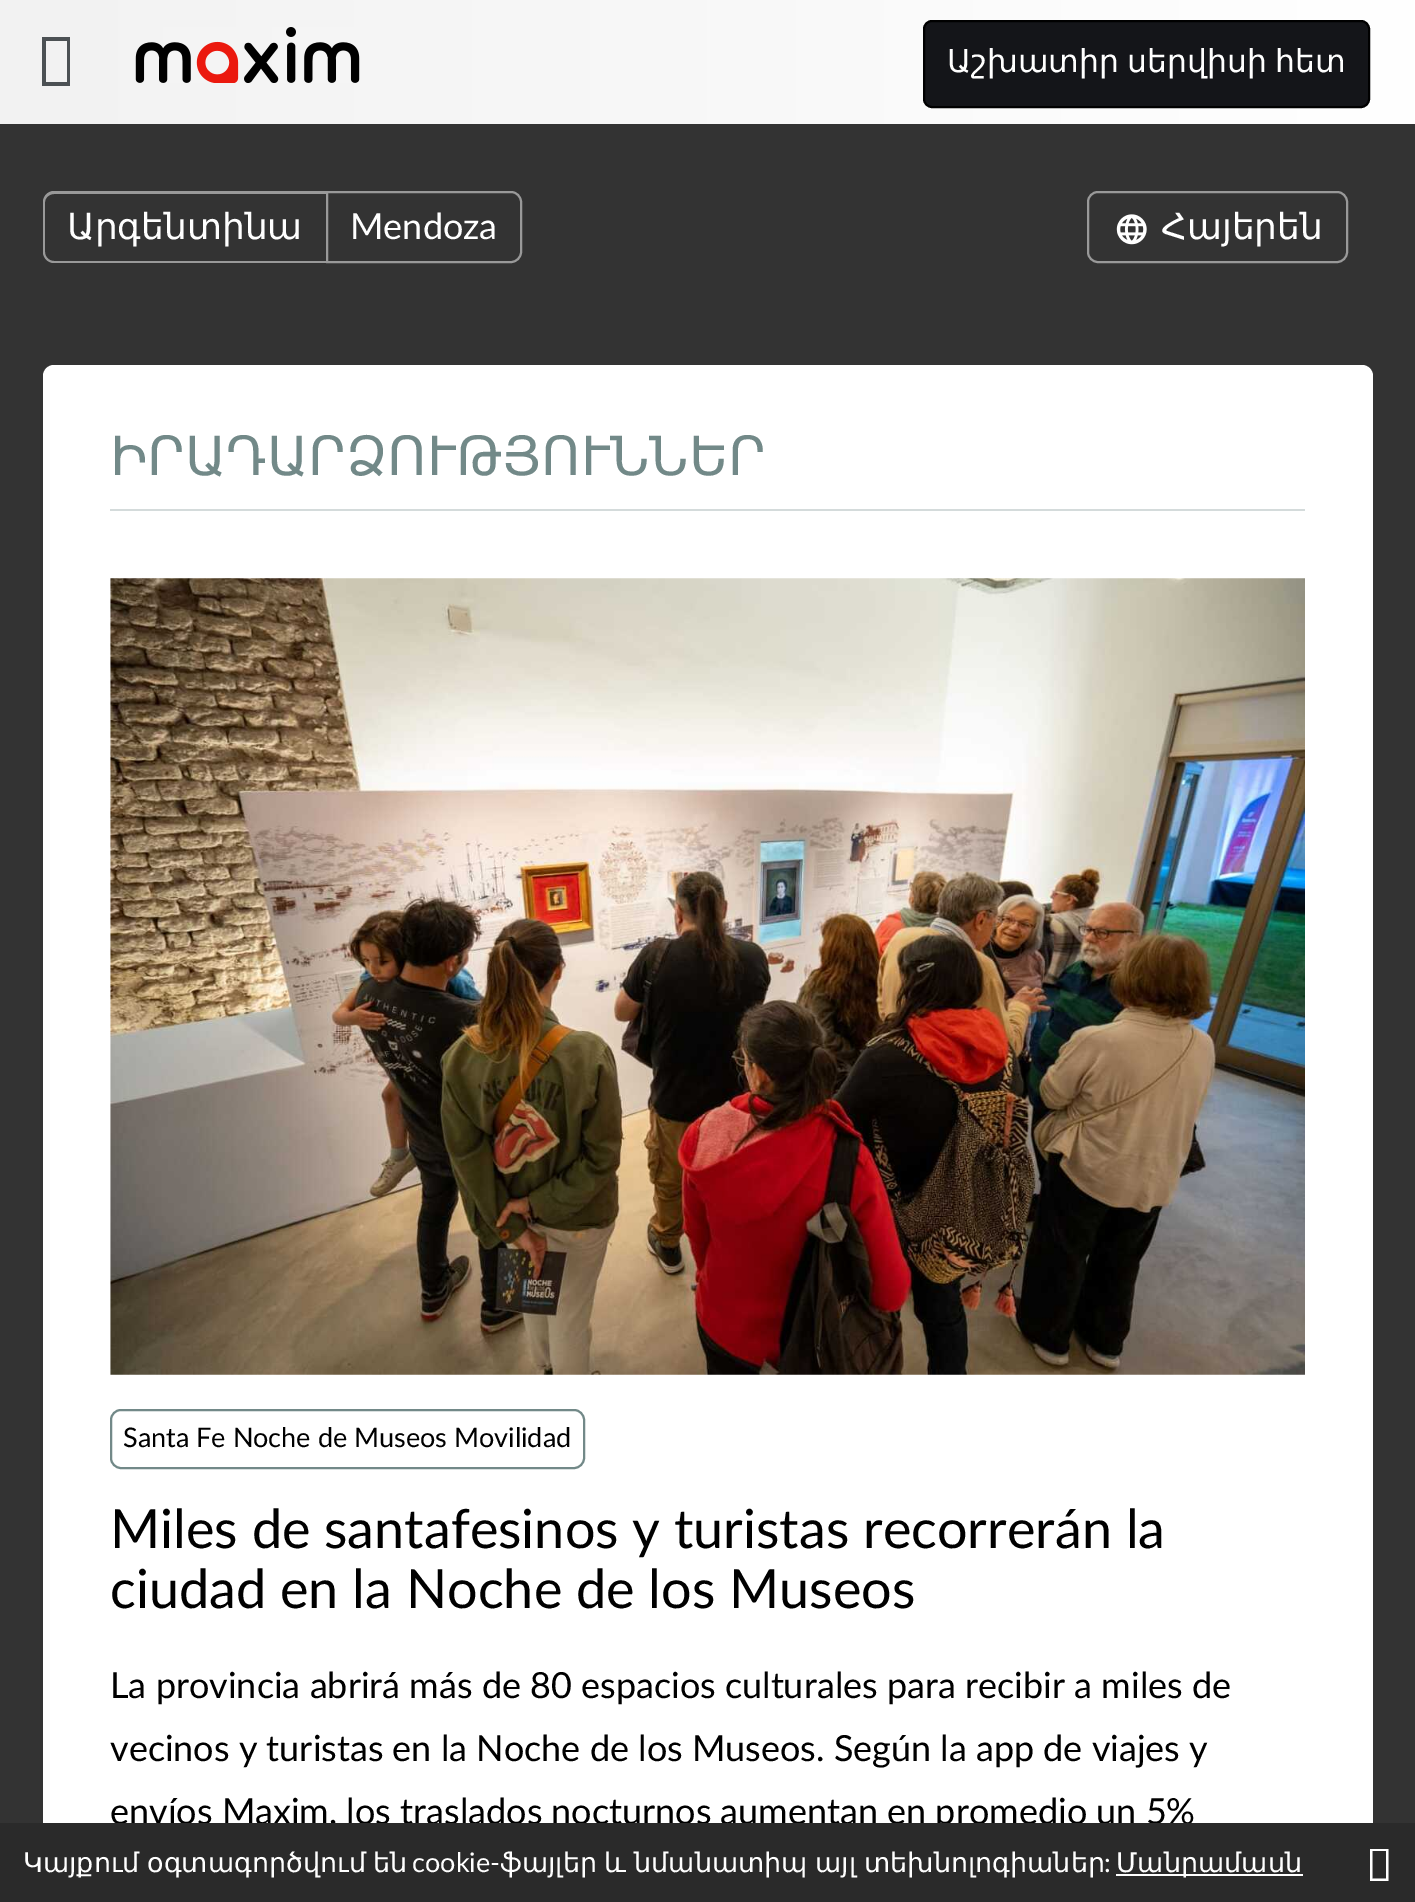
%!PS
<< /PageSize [1415 1902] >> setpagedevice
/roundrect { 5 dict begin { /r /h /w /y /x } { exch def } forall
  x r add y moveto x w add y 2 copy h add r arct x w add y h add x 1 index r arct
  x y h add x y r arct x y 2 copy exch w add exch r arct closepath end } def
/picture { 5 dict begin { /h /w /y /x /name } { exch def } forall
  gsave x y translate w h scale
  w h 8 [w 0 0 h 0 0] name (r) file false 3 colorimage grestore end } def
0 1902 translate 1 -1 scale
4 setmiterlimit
0.2 setgray
0 0 1415 1902 rectfill
gsave newpath 0 0 moveto 1415 0 lineto 1415 124 lineto 0 124 lineto closepath clip newpath
<< /ShadingType 2 /ColorSpace /DeviceRGB /Coords [0 62 1415 62] /Extend [true true] /Function << /FunctionType 2 /Domain [0 1] /C0 [0.949 0.949 0.949] /C1 [1 1 1] /N 1 >> >> shfill grestore
0.298 0.318 0.329 setrgbcolor
newpath 42 86 moveto 42 37 lineto 70 37 lineto 70 86 lineto closepath 46 82 moveto 67 82 lineto 67 41 lineto 46 41 lineto closepath fill
(img1.rgb) 135 27 225 56 picture
0.078 0.082 0.098 setrgbcolor
924 21 445 86 8 roundrect gsave fill grestore
0 setgray
2 setlinewidth
stroke
/DejaVuSans-Regular [31.5 0 0 -31.5 0 0] selectfont
1 setgray
947 72 moveto -2 0 32 (Աշխատիր սերվիսի հետ) widthshow
0.6 setgray
newpath 54 191 moveto 326 191 lineto 326 263 lineto 54 263 lineto 48 263 43 258 43 252 curveto 43 202 lineto 43 196 48 191 54 191 curveto closepath 54 194 moveto 326 194 lineto 326 261 lineto 54 261 lineto 49 261 45 257 45 252 curveto 45 202 lineto 45 198 49 194 54 194 curveto closepath eofill
/DejaVuSans-Regular [36 0 0 -36 0 0] selectfont
1 setgray
67 239 moveto (Արգենտինա) show
0.6 setgray
newpath 327 192 moveto 511 192 lineto 516.5 192 521 196.5 521 202 curveto 521 252 lineto 521 257.5 516.5 262 511 262 curveto 327 262 lineto closepath stroke
/Lato-Regular [36 0 0 -36 0 0] selectfont
1 setgray
350 239 moveto (Mendoza) show
0.6 setgray
1088 192 259 70 10 roundrect stroke
(img2.rgb) 1116 214 31 31 picture
/DejaVuSans-Regular [36 0 0 -36 0 0] selectfont
1 setgray
1161 239 moveto (Հայերեն) show
43 365 1330 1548 11 roundrect fill
0.831 0.859 0.859 setrgbcolor
110 509 1195 2 rectfill
/DejaVuSans-Regular [54 0 0 -54 0 0] selectfont
0.447 0.537 0.533 setrgbcolor
110 475 moveto (ԻՐԱԴԱՐՁՈՒԹՅՈՒՆՆԵՐ) show
(img3.rgb) 110 578 1195 797 picture
111 1410 473 58 10 roundrect stroke
/Lato-Regular [27 0 0 -27 0 0] selectfont
0 setgray
123 1447 moveto (Santa Fe Noche de Museos Movilidad) show
/Lato-Regular [54 0 0 -54 0 0] selectfont
110 1548 moveto (Miles de santafesinos y turistas recorrerán la) show
110 1608 moveto (ciudad en la Noche de los Museos) show
/Lato-Regular [36 0 0 -36 0 0] selectfont
110 1698 moveto (La provincia abrirá más de 80 espacios culturales para recibir a miles de) show
110 1761 moveto (vecinos y turistas en la Noche de los Museos. Según la app de viajes y) show
110 1824 moveto (envíos Maxim, los traslados nocturnos aumentan en promedio un 5%) show
0.165 setgray
0 1823 1415 79 rectfill
/DejaVuSans-Regular [27 0 0 -27 0 0] selectfont
1 setgray
23 1872 moveto -1 0 32 (Կայքում օգտագործվում են) widthshow
/Lato-Regular [27 0 0 -27 0 0] selectfont
412 1872 moveto (cookie-) show
/DejaVuSans-Regular [27 0 0 -27 0 0] selectfont
500 1872 moveto -1 0 32 (ֆայլեր և նմանատիպ այլ տեխնոլոգիաներ) widthshow
/Lato-Regular [27 0 0 -27 0 0] selectfont
1104 1872 moveto (:) show
1116 1874 187 2 rectfill
/DejaVuSans-Regular [27 0 0 -27 0 0] selectfont
1116 1872 moveto (Մանրամասն) show
newpath 1370 1881 moveto 1370 1849 lineto 1388.5 1849 lineto 1388.5 1881 lineto closepath 1372.5 1878.5 moveto 1386 1878.5 lineto 1386 1851 lineto 1372.5 1851 lineto closepath fill
showpage
